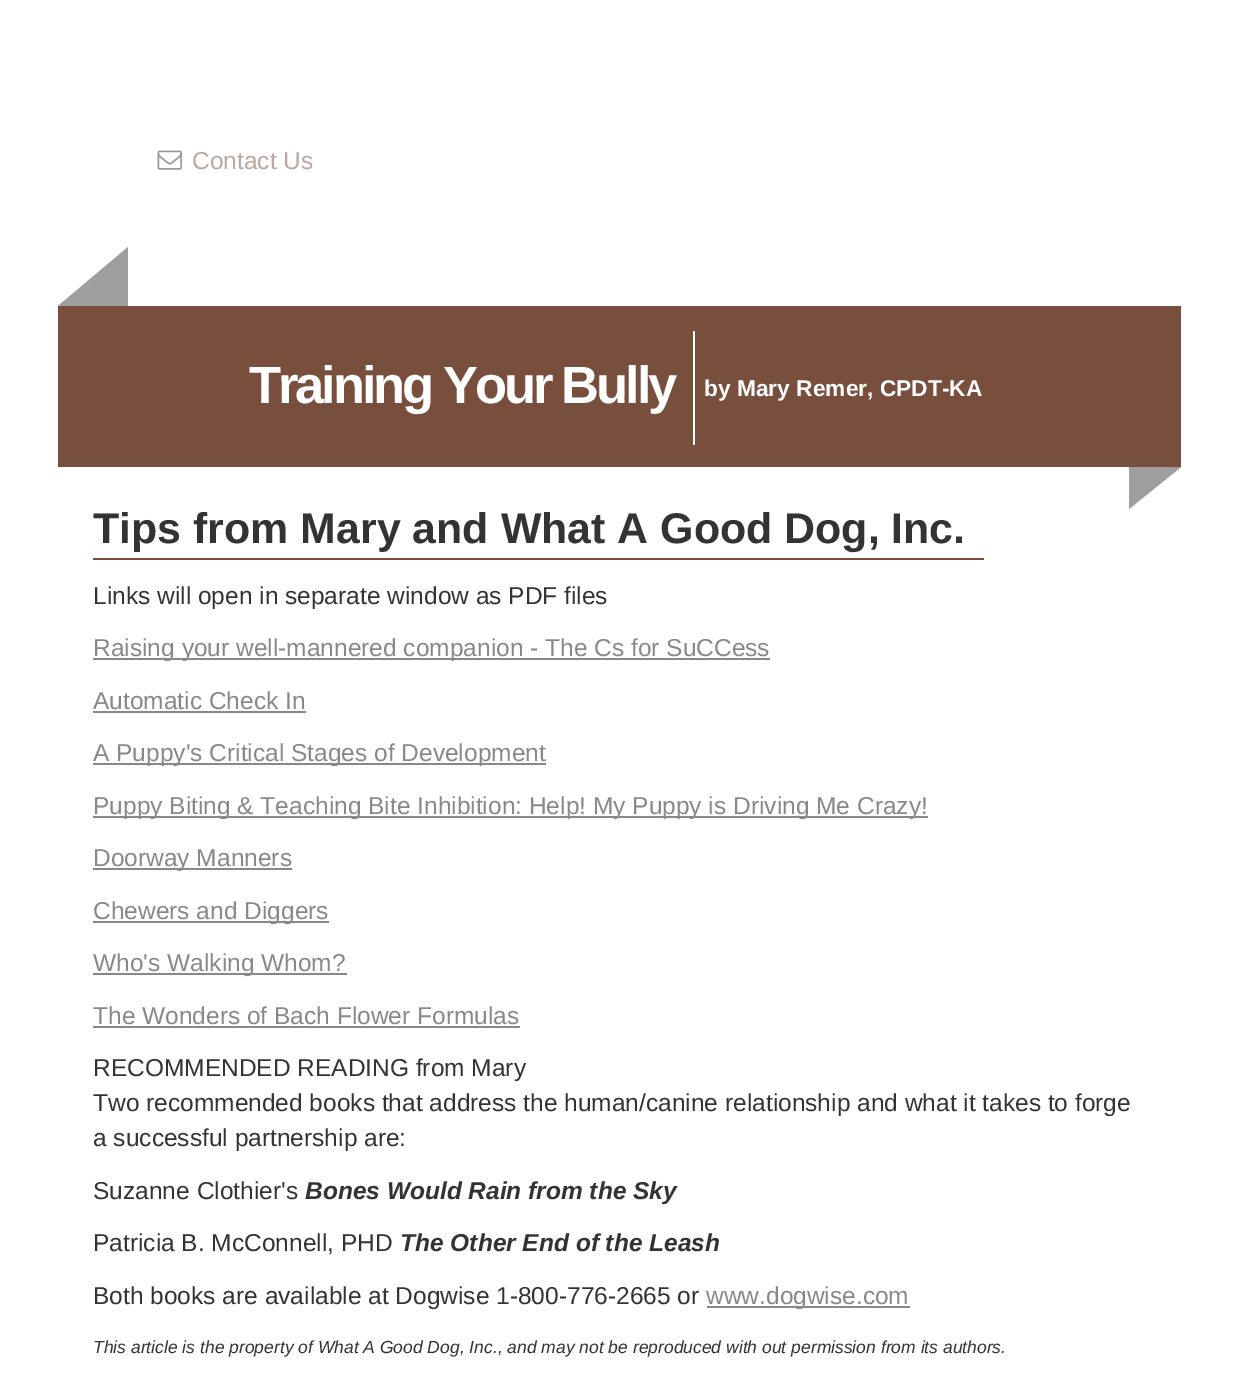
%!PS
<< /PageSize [1239 1388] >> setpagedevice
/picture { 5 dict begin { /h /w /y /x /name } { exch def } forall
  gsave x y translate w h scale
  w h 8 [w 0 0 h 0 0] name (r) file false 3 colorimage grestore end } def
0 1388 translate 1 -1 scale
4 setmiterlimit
1 setgray
0 0 1239 1388 rectfill
(img1.rgb) 157 150 25 20 picture
/LiberationSans-Regular [24.5 0 0 -24.5 0 0] selectfont
0.737 0.655 0.62 setrgbcolor
192 169 moveto (Contact Us) show
0.471 0.306 0.239 setrgbcolor
58 306 1123 161 rectfill
0.62 setgray
newpath 128 247 moveto 128 306 lineto 58 306 lineto closepath fill
/LiberationSans-Bold [52.5 0 0 -52.5 0 0] selectfont
1 setgray
249 403 moveto -3.1 0 (Training Your Bully) ashow
/LiberationSans-Bold [22.75 0 0 -22.75 0 0] selectfont
704 396 moveto (by Mary Remer, CPDT-KA) show
693 331 2 114 rectfill
0.62 setgray
newpath 1129 467 moveto 1181 467 lineto 1129 509 lineto closepath fill
/LiberationSans-Bold [42.9 0 0 -42.9 0 0] selectfont
0.2 setgray
93 543 moveto (Tips from Mary and What A Good Dog, Inc.) show
0.471 0.306 0.239 setrgbcolor
93 558 891 2 rectfill
/LiberationSans-Regular [24.5 0 0 -24.5 0 0] selectfont
0.2 setgray
93 604 moveto (Links will open in separate window as PDF files) show
0.533 setgray
93 658 677 2 rectfill
93 656 moveto (Raising your well-mannered companion - The Cs for SuCCess) show
93 709 moveto (Automatic Check In) show
93 711 213 2 rectfill
93 763 453 2 rectfill
93 761 moveto (A Puppy's Critical Stages of Development) show
93 816 835 2 rectfill
93 814 moveto (Puppy Biting & Teaching Bite Inhibition: Help! My Puppy is Driving Me Crazy!) show
93 868 199 2 rectfill
93 866 moveto (Doorway Manners) show
93 921 236 2 rectfill
93 919 moveto (Chewers and Diggers) show
93 973 254 2 rectfill
93 971 moveto (Who's Walking Whom?) show
93 1024 moveto (The Wonders of Bach Flower Formulas) show
93 1026 427 2 rectfill
0.2 setgray
93 1076 moveto (RECOMMENDED READING from Mary) show
93 1111 moveto (Two recommended books that address the human/canine relationship and what it takes to forge) show
93 1146 moveto (a successful partnership are:) show
93 1199 moveto (Suzanne Clothier's) show
/LiberationSans-BoldItalic [24.5 0 0 -24.5 0 0] selectfont
305 1199 moveto (Bones Would Rain from the Sky) show
/LiberationSans-Regular [24.5 0 0 -24.5 0 0] selectfont
93 1251 moveto (Patricia B. McConnell, PHD) show
/LiberationSans-BoldItalic [24.5 0 0 -24.5 0 0] selectfont
400 1251 moveto (The Other End of the Leash) show
/LiberationSans-Regular [24.5 0 0 -24.5 0 0] selectfont
93 1304 moveto (Both books are available at Dogwise 1-800-776-2665 or) show
0.533 setgray
707 1306 203 2 rectfill
706 1304 moveto (www.dogwise.com) show
/LiberationSans-Italic [17.5 0 0 -17.5 0 0] selectfont
0.2 setgray
93 1353 moveto (This article is the property of What A Good Dog, Inc., and may not be reproduced with out permission from its authors.) show
showpage
